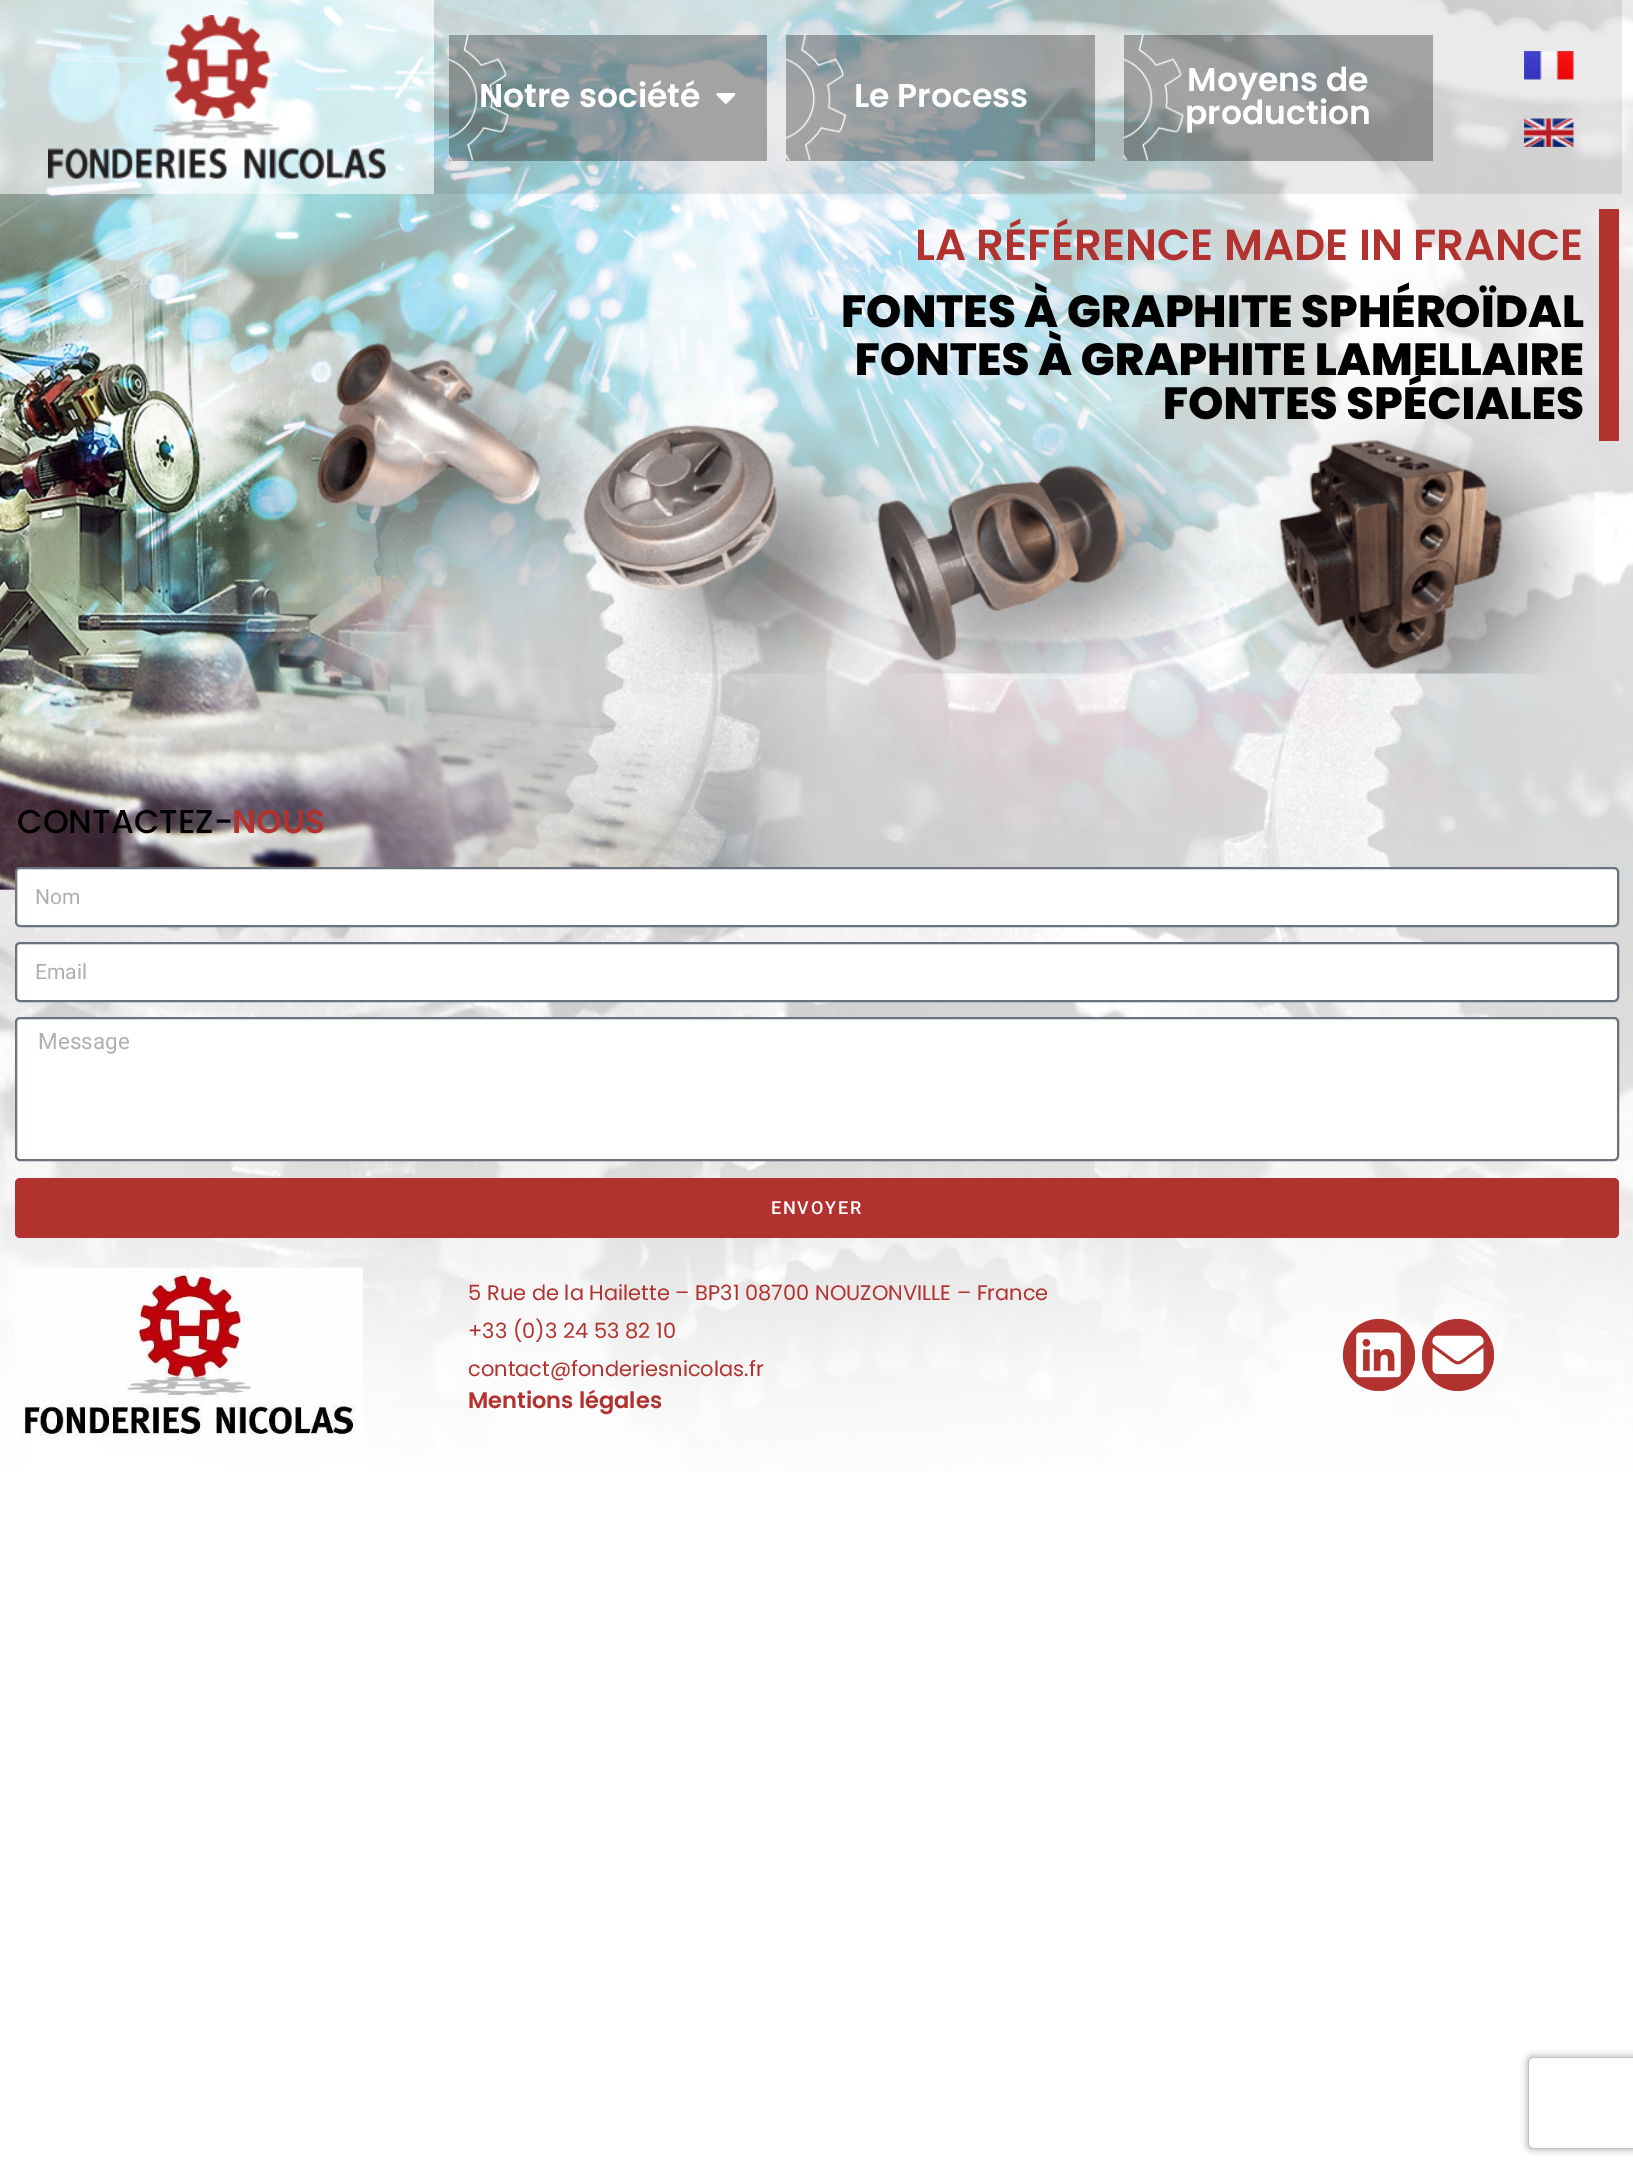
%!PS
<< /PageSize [1633 2169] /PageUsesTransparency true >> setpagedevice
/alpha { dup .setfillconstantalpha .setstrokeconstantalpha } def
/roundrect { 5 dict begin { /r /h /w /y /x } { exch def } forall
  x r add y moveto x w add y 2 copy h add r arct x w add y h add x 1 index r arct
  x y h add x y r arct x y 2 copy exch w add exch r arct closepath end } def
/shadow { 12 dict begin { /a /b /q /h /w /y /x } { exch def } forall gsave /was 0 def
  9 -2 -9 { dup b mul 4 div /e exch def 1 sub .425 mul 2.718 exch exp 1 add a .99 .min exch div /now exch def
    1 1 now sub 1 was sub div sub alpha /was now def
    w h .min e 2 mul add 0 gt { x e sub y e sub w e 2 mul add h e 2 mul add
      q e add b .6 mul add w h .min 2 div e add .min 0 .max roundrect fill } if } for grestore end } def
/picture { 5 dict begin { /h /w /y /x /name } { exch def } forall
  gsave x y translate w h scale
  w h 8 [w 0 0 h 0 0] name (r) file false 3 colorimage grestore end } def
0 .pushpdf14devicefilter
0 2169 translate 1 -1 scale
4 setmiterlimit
1 setgray
0 0 1633 2169 rectfill
(img1.rgb) 0 0 1633 1472 picture
0.55 alpha
0 0 434 194 rectfill
1 alpha
(img2.rgb) 48 15 338 164 picture
0.09 alpha
0.075 setgray
434 0 1042 194 rectfill
0.3 alpha
0 setgray
449 35 318 126 rectfill
1 alpha
(img3.rgb) 448 34 61 127 picture
/Poppins-SemiBold [33 0 0 -33 0 0] selectfont
1 setgray
479 107 moveto (Notre société) show
(img4.rgb) 716 93 20 11 picture
0.3 alpha
0 setgray
786 35 309 126 rectfill
1 alpha
(img5.rgb) 786 34 60 127 picture
1 setgray
854 107 moveto (Le Process) show
0.3 alpha
0 setgray
1124 35 309 126 rectfill
1 alpha
(img6.rgb) 1123 34 61 127 picture
1 setgray
1187 91 moveto (Moyens de) show
1185 124 moveto (production) show
0.09 alpha
0.075 setgray
1476 0 146 194 rectfill
1 alpha
(img7.rgb) 1524 51 50 29 picture
(img8.rgb) 1524 118 50 29 picture
0.698 0.196 0.184 setrgbcolor
1599 209 20 232 rectfill
/Poppins-SemiBold [43.5 0 0 -43.5 0 0] selectfont
915 260 moveto (LA RÉFÉRENCE MADE IN FRANCE) show
/Poppins-ExtraBold [45 0 0 -45 0 0] selectfont
0 setgray
841 327 moveto (FONTES À GRAPHITE SPHÉROÏDAL) show
855 375 moveto (FONTES À GRAPHITE LAMELLAIRE) show
1163 419 moveto (FONTES SPÉCIALES) show
(img9.rgb) 315 329 1280 345 picture
/Poppins-Medium [33 0 0 -33 0 0] selectfont
17 833 moveto (CONTACTEZ-) show
/Poppins-SemiBold [33 0 0 -33 0 0] selectfont
0.698 0.196 0.184 setrgbcolor
232 833 moveto (NOUS) show
1 setgray
16 868 1602 58 4 roundrect gsave fill grestore
0.412 0.447 0.49 setrgbcolor
2 setlinewidth
stroke
/Roboto-Regular [21 0 0 -21 0 0] selectfont
0.686 setgray
35 904 moveto (Nom) show
1 setgray
16 943 1602 58 4 roundrect gsave fill grestore
0.412 0.447 0.49 setrgbcolor
stroke
0.686 setgray
35 979 moveto (Email) show
1 setgray
16 1018 1602 142 4 roundrect gsave fill grestore
0.412 0.447 0.49 setrgbcolor
stroke
/Roboto-Regular [22.5 0 0 -22.5 0 0] selectfont
0.686 setgray
38 1049 moveto (Message) show
0.698 0.196 0.184 setrgbcolor
15 1178 1604 60 5 roundrect fill
/Roboto-Medium [18 0 0 -18 0 0] selectfont
1 setgray
771 1214 moveto 1.75 0 (ENVOYER) ashow
gsave
newpath 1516 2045 moveto 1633 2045 lineto 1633 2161 lineto 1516 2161 lineto closepath 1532 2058 moveto 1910 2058 lineto 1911.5 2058 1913 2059.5 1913 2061 curveto 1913 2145 lineto 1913 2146.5 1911.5 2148 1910 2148 curveto 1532 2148 lineto 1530.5 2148 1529 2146.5 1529 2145 curveto 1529 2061 lineto 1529 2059.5 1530.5 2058 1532 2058 curveto closepath eoclip newpath
0.502 setgray
1529 2058 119 90 3 4 1 shadow
grestore
(img10.rgb) 15 1267 348 169 picture
/Poppins-Regular [21 0 0 -21 0 0] selectfont
0.698 0.196 0.184 setrgbcolor
468 1300 moveto (5 Rue de la Hailette – BP31 08700 NOUZONVILLE – France) show
468 1338 moveto (+33 \(0\)3 24 53 82 10) show
468 1376 moveto (contact@fonderiesnicolas.fr) show
/Poppins-SemiBold [22.5 0 0 -22.5 0 0] selectfont
468 1408 moveto (Mentions légales) show
newpath 1379 1355 36 0 360 arc closepath fill
(img11.rgb) 1356 1332 45 46 picture
newpath 1458 1355 36 0 360 arc closepath fill
(img12.rgb) 1432 1335 52 39 picture
.poppdf14devicefilter showpage
